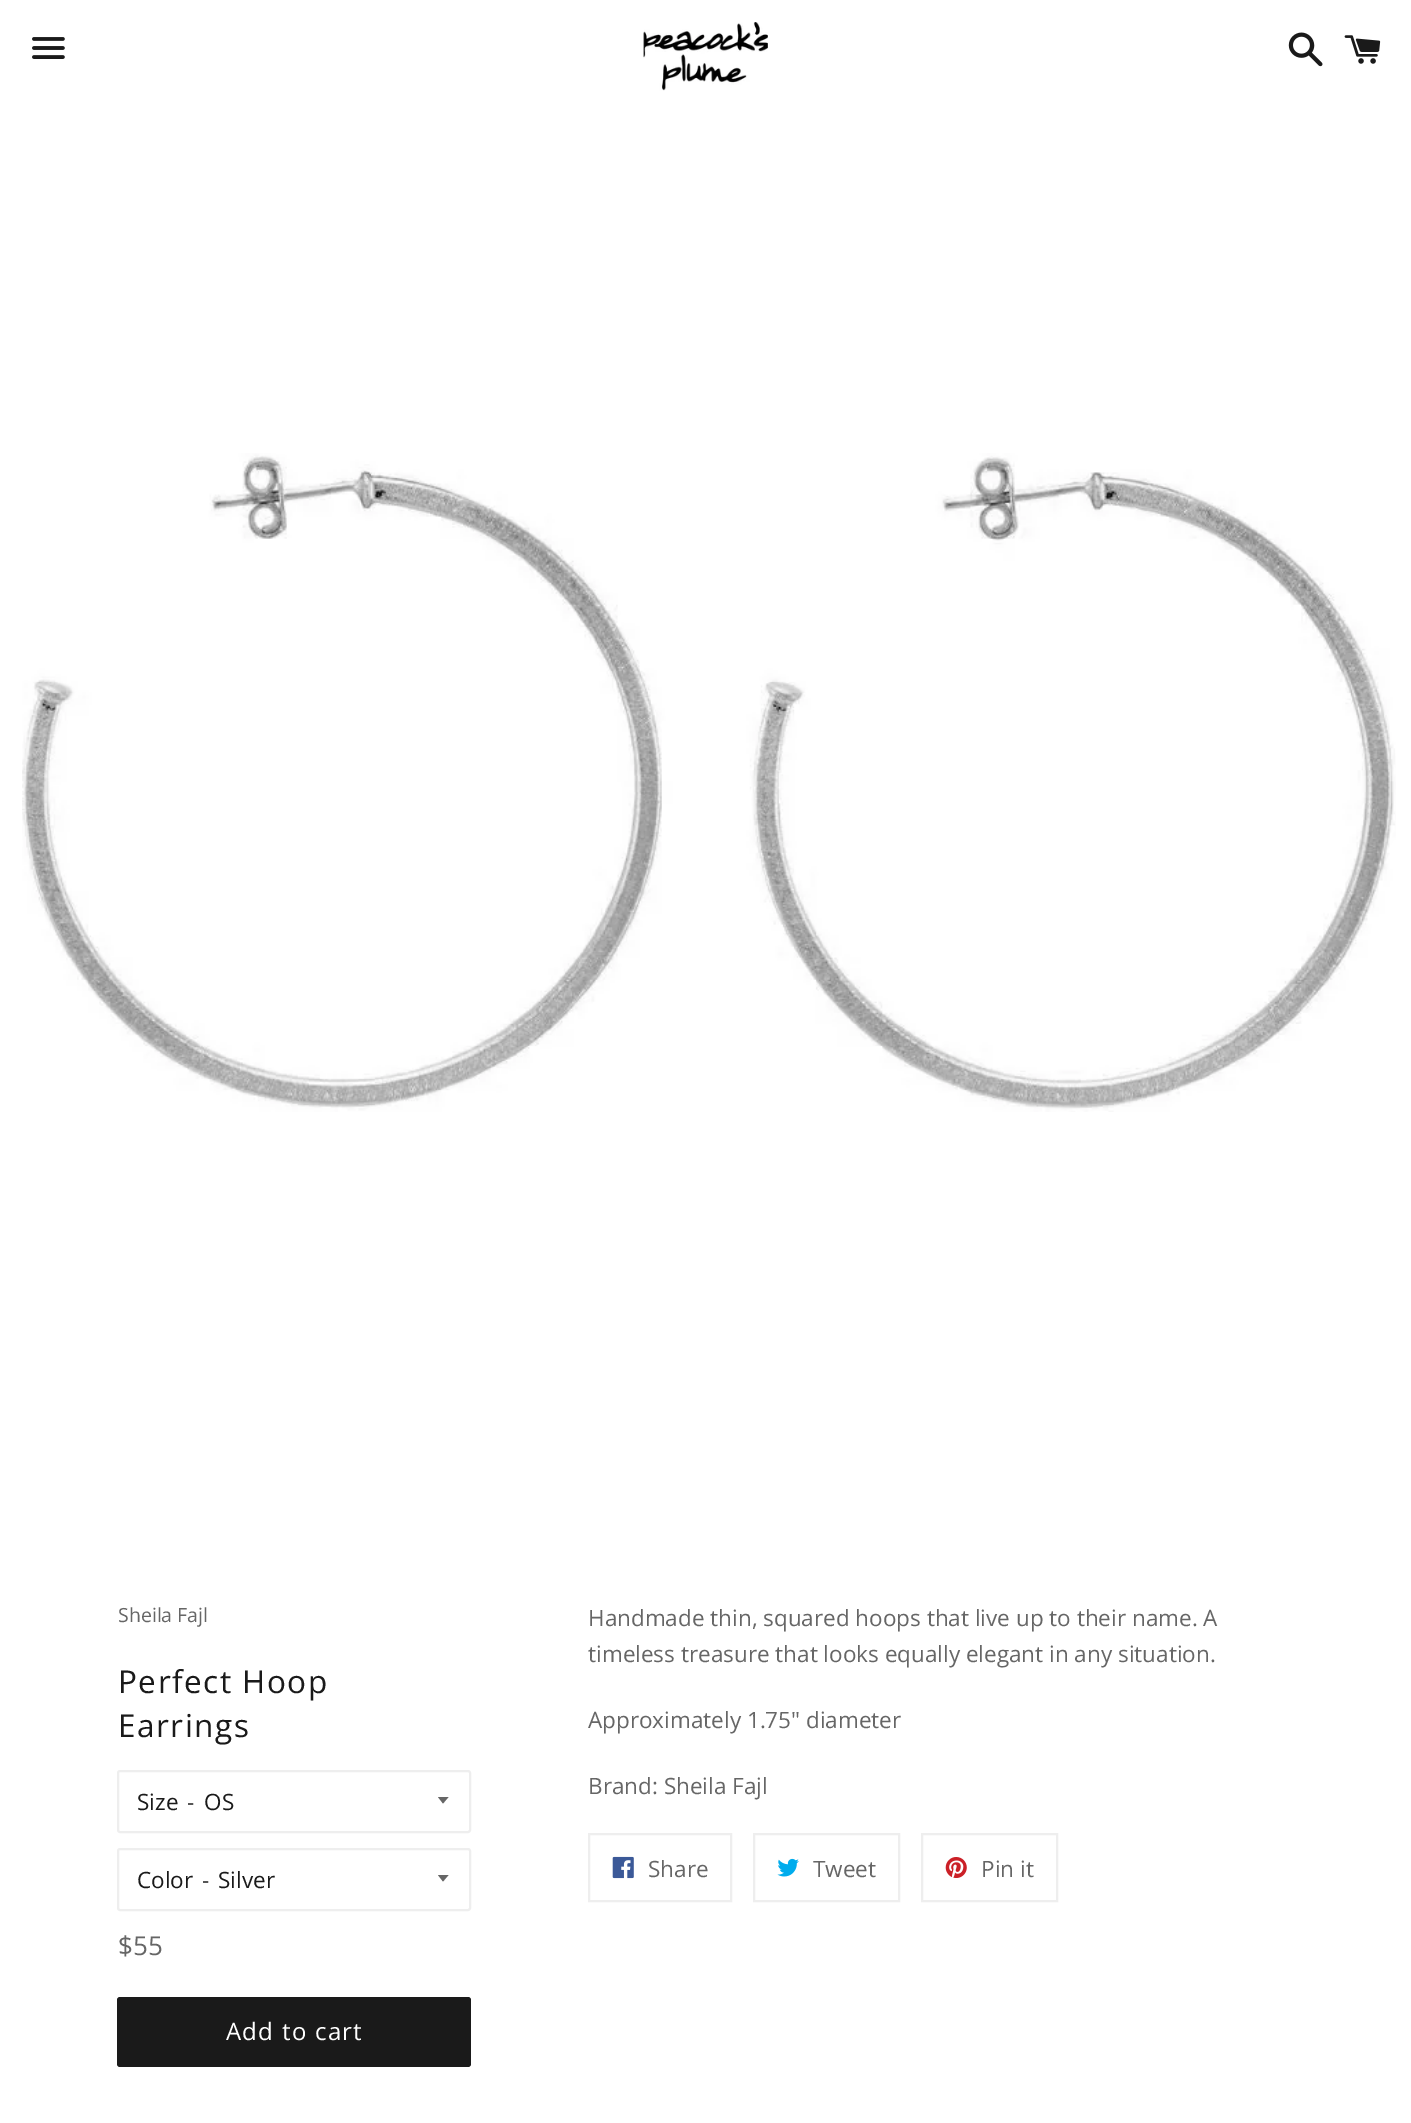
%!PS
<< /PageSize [1411 2123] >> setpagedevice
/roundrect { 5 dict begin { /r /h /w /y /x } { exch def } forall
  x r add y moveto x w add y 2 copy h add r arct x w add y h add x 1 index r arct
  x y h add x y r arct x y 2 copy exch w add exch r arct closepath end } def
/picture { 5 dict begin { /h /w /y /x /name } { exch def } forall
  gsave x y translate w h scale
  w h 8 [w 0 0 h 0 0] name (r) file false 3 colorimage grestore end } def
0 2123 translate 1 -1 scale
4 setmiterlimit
1 setgray
0 0 1411 2123 rectfill
(img1.rgb) 32 37 33 22 picture
(img2.rgb) 643 22 125 69 picture
(img3.rgb) 1288 32 35 35 picture
(img4.rgb) 1344 35 37 29 picture
(img5.rgb) 22 453 1374 659 picture
/OpenSans-Regular [19.5 0 0 -19.5 0 0] selectfont
0.4 setgray
118 1622 moveto (Sheila Fajl) show
/OpenSans-Regular [31.5 0 0 -31.5 0 0] selectfont
0.102 setgray
118 1693 moveto 1.5 0 (Perfect Hoop) ashow
118 1737 moveto 1.5 0 (Earrings) ashow
0.933 setgray
2 setlinewidth
118 1771 352 61 2 roundrect stroke
/OpenSans-Regular [22.5 0 0 -22.5 0 0] selectfont
0.102 setgray
137 1810 moveto (Size) show
187 1810 moveto (-) show
0.4 setgray
newpath 438 1797 moveto 443 1803.5 lineto 448.5 1797 lineto closepath fill
0.102 setgray
204 1810 moveto (OS) show
0.933 setgray
118 1849 352 61 2 roundrect stroke
0.102 setgray
137 1888 moveto (Color) show
202 1888 moveto (-) show
0.4 setgray
newpath 438 1875 moveto 443 1881.5 lineto 448.5 1875 lineto closepath fill
0.102 setgray
218 1888 moveto (Silver) show
/OpenSans-Regular [26 0 0 -26 0 0] selectfont
0.4 setgray
118 1955 moveto ($55) show
0.102 setgray
117 1997 354 70 3 roundrect fill
/OpenSans-Regular [24 0 0 -24 0 0] selectfont
1 setgray
226 2040 moveto 1.25 0 (Add to cart) ashow
/OpenSans-Regular [22.5 0 0 -22.5 0 0] selectfont
0.4 setgray
588 1626 moveto (Handmade thin, squared hoops that live up to their name. A) show
588 1662 moveto (timeless treasure that looks equally elegant in any situation.) show
588 1728 moveto (Approximately 1.75" diameter) show
588 1794 moveto (Brand: Sheila Fajl) show
0.933 setgray
589 1834 142 67 rectstroke
(img6.rgb) 612 1856 22 23 picture
0.4 setgray
648 1877 moveto (Share) show
0.933 setgray
754 1834 145 67 rectstroke
(img7.rgb) 777 1858 22 19 picture
0.4 setgray
813 1877 moveto (Tweet) show
0.933 setgray
922 1834 135 67 rectstroke
(img8.rgb) 945 1857 22 21 picture
0.4 setgray
981 1877 moveto (Pin it) show
showpage
